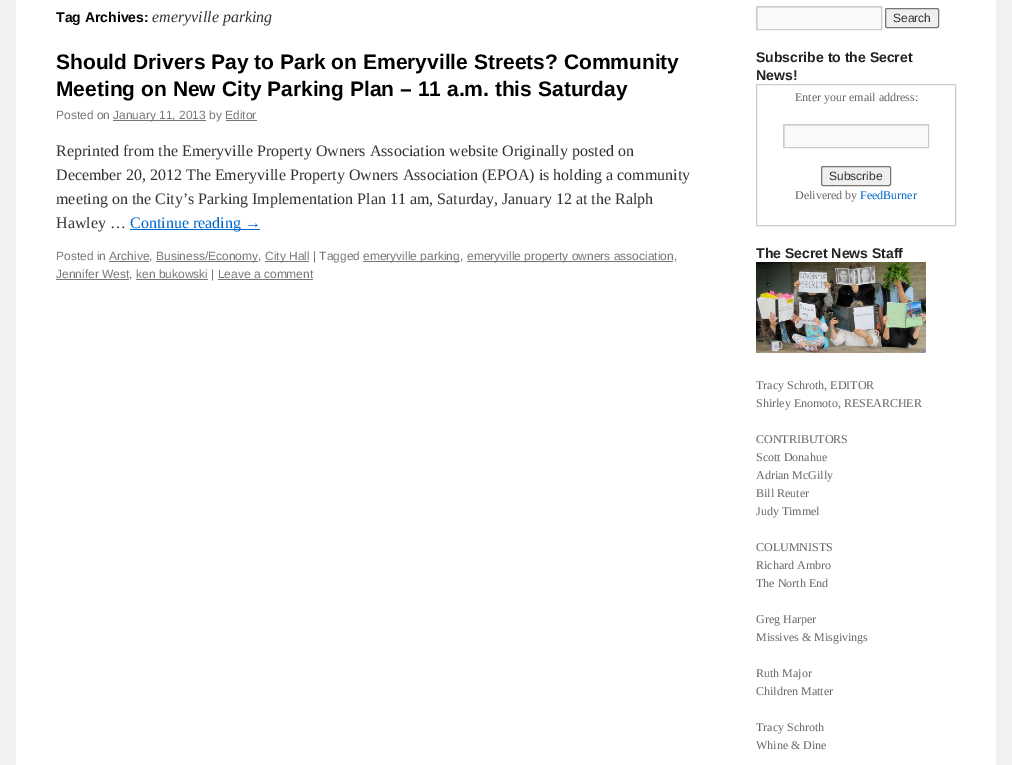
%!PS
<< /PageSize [1012 765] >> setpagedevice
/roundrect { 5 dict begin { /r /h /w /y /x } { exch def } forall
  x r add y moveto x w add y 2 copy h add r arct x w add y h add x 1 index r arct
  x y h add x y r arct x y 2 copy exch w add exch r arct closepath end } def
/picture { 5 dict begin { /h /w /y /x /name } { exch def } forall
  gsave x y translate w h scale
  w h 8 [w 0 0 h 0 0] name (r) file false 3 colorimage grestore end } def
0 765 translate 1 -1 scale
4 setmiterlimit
0.945 setgray
0 0 1012 765 rectfill
1 setgray
16 0 980 765 rectfill
/LiberationSans-Bold [14 0 0 -14 0 0] selectfont
0 setgray
56 22 moveto (Tag Archives:) show
/LiberationSerif-Italic [16 0 0 -16 0 0] selectfont
0.2 setgray
152 22 moveto (emeryville parking) show
/LiberationSans-Bold [21 0 0 -21 0 0] selectfont
0 setgray
56 69 moveto (Should Drivers Pay to Park on Emeryville Streets? Community) show
56 96 moveto (Meeting on New City Parking Plan – 11 a.m. this Saturday) show
/LiberationSans-Regular [12 0 0 -12 0 0] selectfont
0.467 setgray
56 119 moveto (Posted on) show
113 120 93 1 rectfill
113 119 moveto (January 11, 2013 by Editor) show
226 120 31 1 rectfill
/LiberationSerif-Regular [16 0 0 -16 0 0] selectfont
0.2 setgray
56 156 moveto (Reprinted from the Emeryville Property Owners Association website Originally posted on) show
56 180 moveto (December 20, 2012 The Emeryville Property Owners Association \(EPOA\) is holding a community) show
56 204 moveto (meeting on the City’s Parking Implementation Plan 11 am, Saturday, January 12 at the Ralph) show
56 228 moveto (Hawley …) show
0 0.4 0.8 setrgbcolor
130 229 130 1 rectfill
130 228 moveto (Continue reading →) show
/LiberationSans-Regular [12 0 0 -12 0 0] selectfont
0.467 setgray
56 260 moveto (Posted in Archive,) show
109 261 40 1 rectfill
156 261 102 1 rectfill
156 260 moveto (Business/Economy,) show
265 261 44 1 rectfill
265 260 moveto (City Hall | Tagged) show
363 261 97 1 rectfill
363 260 moveto (emeryville parking,) show
467 261 206 1 rectfill
467 260 moveto (emeryville property owners association,) show
56 279 73 1 rectfill
56 278 moveto (Jennifer West, ken bukowski | Leave a comment) show
136 279 72 1 rectfill
218 279 95 1 rectfill
0.976 setgray
758 8 123 21 rectfill
gsave
757 7 124 22 rectclip
0.878 setgray
newpath 658 -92 moveto 980 -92 lineto 980 128 lineto 658 128 lineto closepath 758 8 moveto 882 8 lineto 882 30 lineto 758 30 lineto closepath eofill
grestore
0.8 setgray
756.5 6.5 125 23 rectstroke
0.937 setgray
885.5 8.5 53 19 1.5 roundrect gsave fill grestore
0.463 setgray
stroke
0.2 setgray
893 22 moveto (Search) show
/LiberationSans-Bold [14 0 0 -14 0 0] selectfont
0.133 setgray
756 62 moveto (Subscribe to the Secret) show
756 80 moveto (News!) show
0.8 setgray
756.5 84.5 199 141 rectstroke
/LiberationSerif-Regular [12 0 0 -12 0 0] selectfont
0.4 setgray
795 101 moveto (Enter your email address:) show
0.976 setgray
785 126 143 21 rectfill
gsave
784 125 144 22 rectclip
0.878 setgray
newpath 685 26 moveto 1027 26 lineto 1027 246 lineto 685 246 lineto closepath 785 126 moveto 929 126 lineto 929 148 lineto 785 148 lineto closepath eofill
grestore
0.8 setgray
783.5 124.5 145 23 rectstroke
0.937 setgray
821.5 166.5 69 19 1.5 roundrect gsave fill grestore
0.463 setgray
stroke
/LiberationSans-Regular [12 0 0 -12 0 0] selectfont
0.2 setgray
829 180 moveto (Subscribe) show
/LiberationSerif-Regular [12 0 0 -12 0 0] selectfont
0.4 setgray
795 199 moveto (Delivered by) show
0 0.4 0.8 setrgbcolor
860 199 moveto (FeedBurner) show
/LiberationSans-Bold [14 0 0 -14 0 0] selectfont
0.133 setgray
756 258 moveto (The Secret News Staff) show
(img1.rgb) 756 262 170 91 picture
/LiberationSerif-Regular [12 0 0 -12 0 0] selectfont
0.4 setgray
756 389 moveto (Tracy Schroth, EDITOR) show
756 407 moveto (Shirley Enomoto, RESEARCHER) show
756 443 moveto (CONTRIBUTORS) show
756 461 moveto (Scott Donahue) show
756 479 moveto (Adrian McGilly) show
756 497 moveto (Bill Reuter) show
756 515 moveto (Judy Timmel) show
756 551 moveto (COLUMNISTS) show
756 569 moveto (Richard Ambro) show
756 587 moveto (The North End) show
756 623 moveto (Greg Harper) show
756 641 moveto (Missives & Misgivings) show
756 677 moveto (Ruth Major) show
756 695 moveto (Children Matter) show
756 731 moveto (Tracy Schroth) show
756 749 moveto (Whine & Dine) show
showpage
